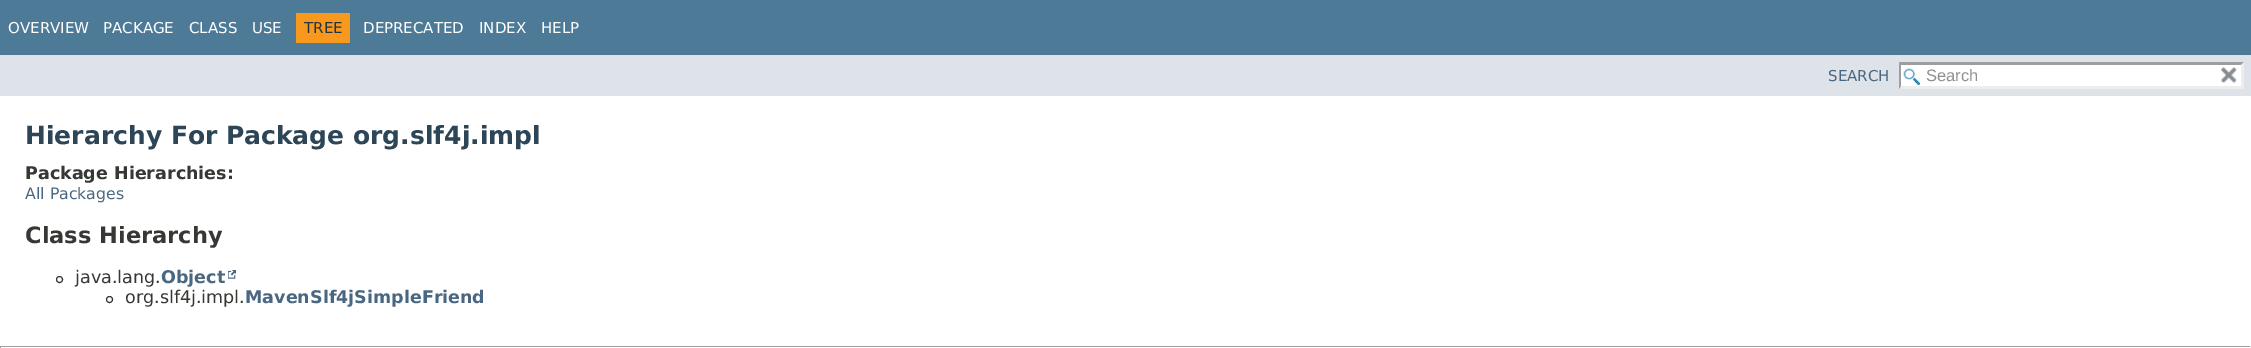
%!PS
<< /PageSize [2251 348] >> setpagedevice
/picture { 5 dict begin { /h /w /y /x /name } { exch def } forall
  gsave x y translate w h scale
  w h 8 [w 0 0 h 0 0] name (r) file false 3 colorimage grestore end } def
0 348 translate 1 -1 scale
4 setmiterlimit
1 setgray
0 0 2251 348 rectfill
0.302 0.478 0.592 setrgbcolor
0 0 2251 55 rectfill
/DejaVuSans-Regular [15 0 0 -15 0 0] selectfont
1 setgray
8 33 moveto (OVERVIEW) show
103 33 moveto (PACKAGE) show
189 33 moveto (CLASS) show
252 33 moveto (USE) show
0.973 0.596 0.114 setrgbcolor
296 13 54 30 rectfill
0.145 0.204 0.255 setrgbcolor
304 33 moveto (TREE) show
1 setgray
363 33 moveto (DEPRECATED) show
479 33 moveto (INDEX) show
541 33 moveto (HELP) show
0.871 0.89 0.914 setrgbcolor
0 55 2251 41 rectfill
0.29 0.404 0.51 setrgbcolor
1828 81 moveto (SEARCH) show
1 setgray
1899 63 345 26 rectfill
(img1.rgb) 1903 68 17 17 picture
0.62 setgray
newpath 1899 62 moveto 2244 62 lineto 2241 65 lineto 1901 65 lineto closepath fill
0.929 setgray
newpath 2244 62.5 moveto 2244 89 lineto 2241 86 lineto 2241 65 lineto closepath fill
newpath 2244 89 moveto 1899 89 lineto 1901 86 lineto 2241 86 lineto closepath fill
0.62 setgray
newpath 1899 89 moveto 1899 62.5 lineto 1901 65 lineto 1901 86 lineto closepath fill
/LiberationSans-Regular [16.5 0 0 -16.5 0 0] selectfont
0.565 setgray
1926 81 moveto (Search) show
(img2.rgb) 2221 67 16 16 picture
/DejaVuSans-Bold [25 0 0 -25 0 0] selectfont
0.173 0.271 0.341 setrgbcolor
25 144 moveto (Hierarchy For Package org.slf4j.impl) show
/DejaVuSans-Bold [17.5 0 0 -17.5 0 0] selectfont
0.208 0.22 0.2 setrgbcolor
25 179 moveto (Package Hierarchies:) show
/DejaVuSans-Regular [15.75 0 0 -15.75 0 0] selectfont
0.29 0.404 0.51 setrgbcolor
25 199 moveto (All Packages) show
/DejaVuSans-Bold [22.5 0 0 -22.5 0 0] selectfont
0.208 0.22 0.2 setrgbcolor
25 243 moveto (Class Hierarchy) show
newpath 59.5 279.5 3 0 360 arc closepath stroke
/DejaVuSans-Regular [17.5 0 0 -17.5 0 0] selectfont
75 283 moveto (java.lang.) show
/DejaVuSans-Bold [17.5 0 0 -17.5 0 0] selectfont
0.29 0.404 0.51 setrgbcolor
161 283 moveto (Object) show
(img3.rgb) 228 270 8 9 picture
0.208 0.22 0.2 setrgbcolor
newpath 109.5 299.5 3 0 360 arc closepath stroke
/DejaVuSans-Regular [17.5 0 0 -17.5 0 0] selectfont
125 303 moveto (org.slf4j.impl.) show
/DejaVuSans-Bold [17.5 0 0 -17.5 0 0] selectfont
0.29 0.404 0.51 setrgbcolor
245 303 moveto (MavenSlf4jSimpleFriend) show
0.624 setgray
0 346 2251 1 rectfill
0.933 setgray
2250 346 1 2 rectfill
0.624 setgray
0 346 1 2 rectfill
showpage
